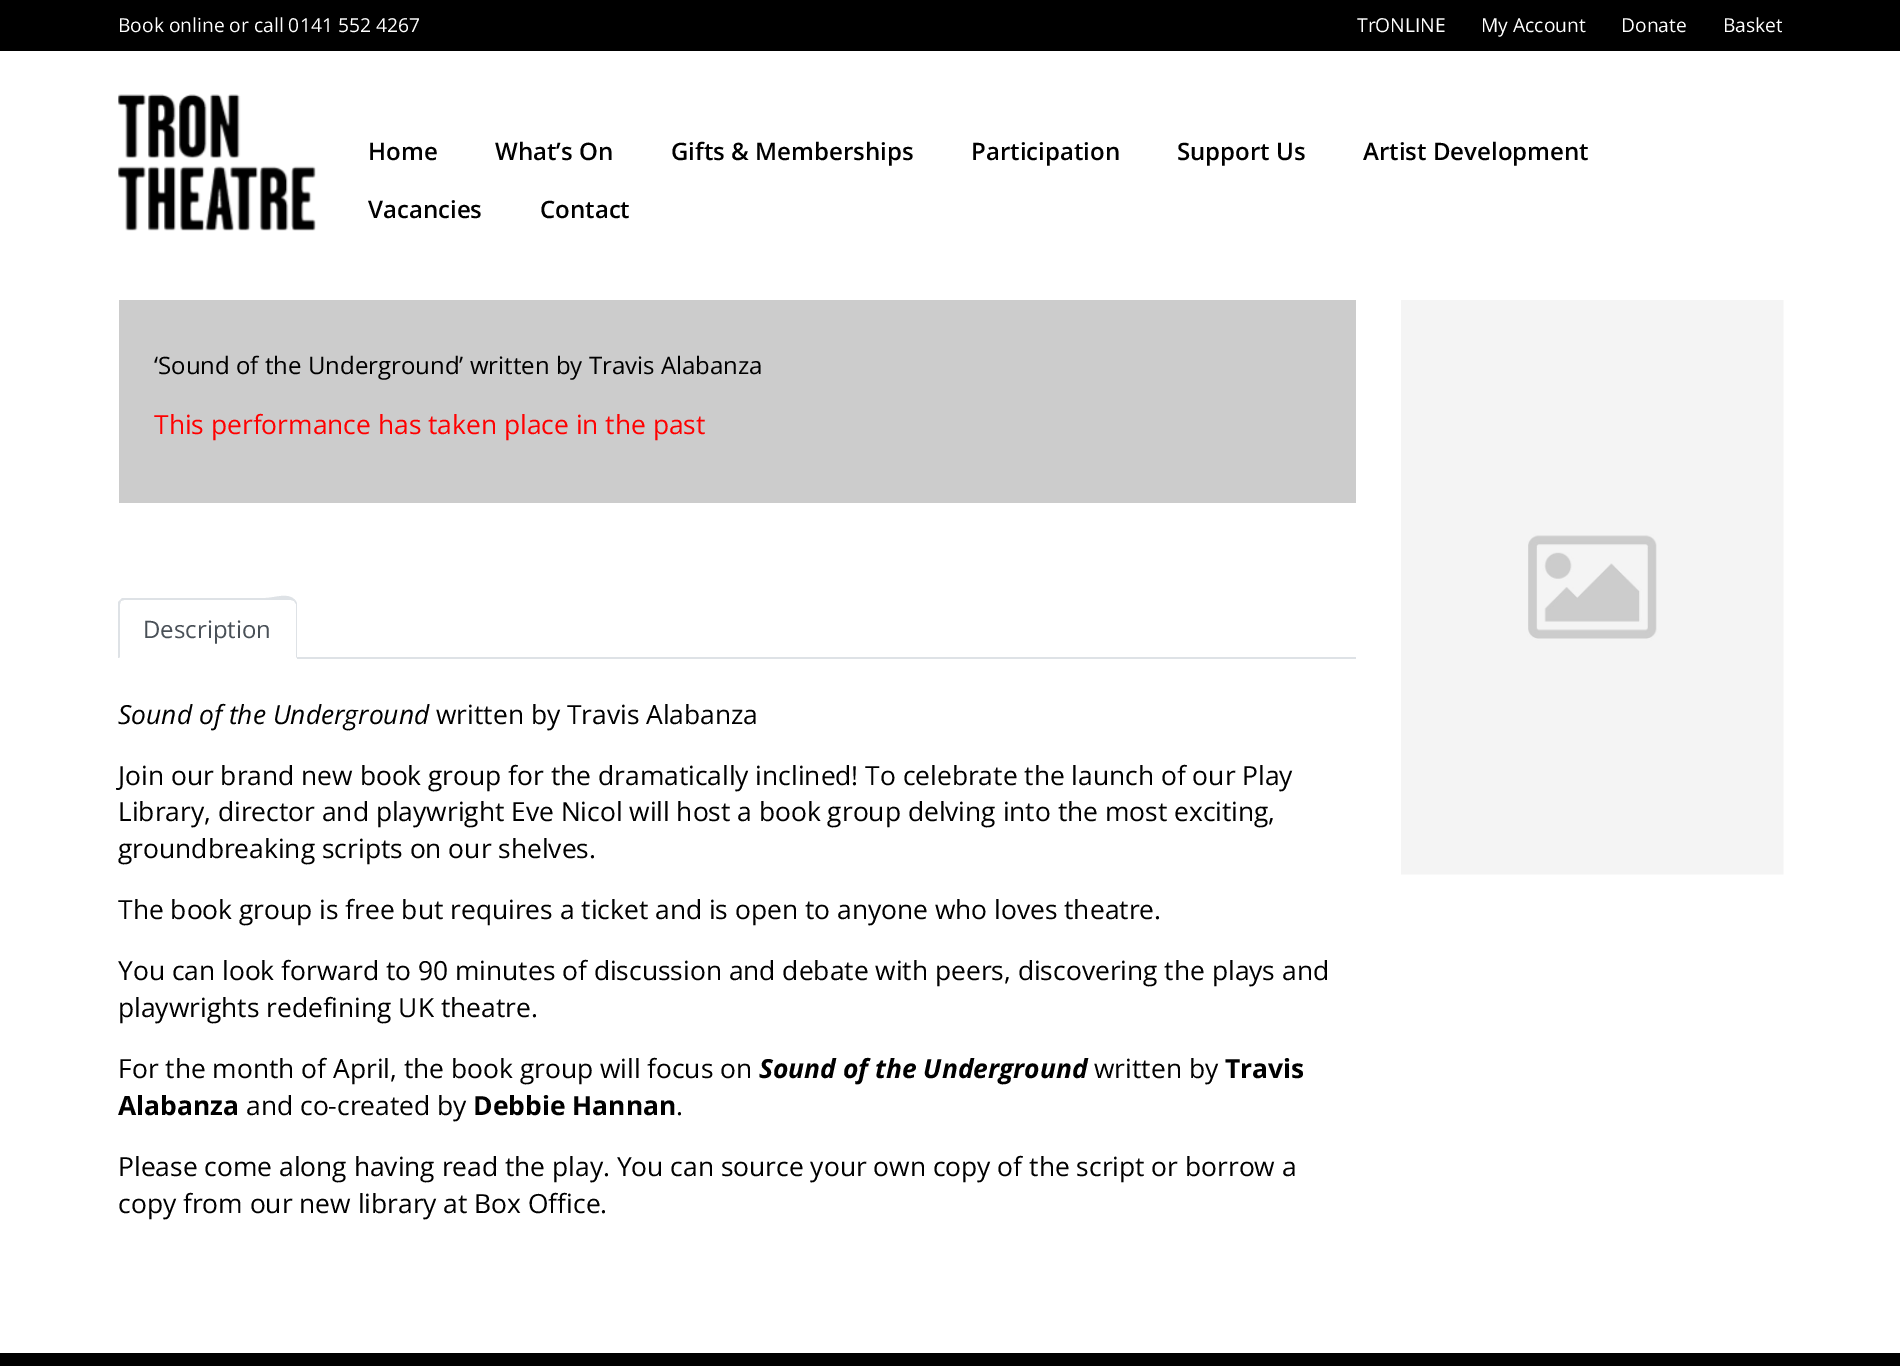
%!PS
<< /PageSize [1900 1366] >> setpagedevice
/picture { 5 dict begin { /h /w /y /x /name } { exch def } forall
  gsave x y translate w h scale
  w h 8 [w 0 0 h 0 0] name (r) file false 3 colorimage grestore end } def
0 1366 translate 1 -1 scale
4 setmiterlimit
1 setgray
0 0 1900 1366 rectfill
0 setgray
0 0 1900 51 rectfill
/OpenSans-Regular [19.25 0 0 -19.25 0 0] selectfont
1 setgray
118 32 moveto (Book online or call 0141 552 4267) show
1357 32 moveto (TrONLINE) show
1481 32 moveto (My Account) show
1621 32 moveto (Donate) show
gsave
1338 0 444 48 rectclip
1723 32 moveto (Basket) show
grestore
(img1.rgb) 118 94 198 137 picture
/OpenSans-SemiBold [24 0 0 -24 0 0] selectfont
0 setgray
368 160 moveto (Home) show
495 160 moveto (What’s On) show
671 160 moveto (Gifts & Memberships) show
971 160 moveto (Participation) show
1177 160 moveto (Support Us) show
1363 160 moveto (Artist Development) show
368 218 moveto (Vacancies) show
540 218 moveto (Contact) show
0.8 setgray
119 300 1237 203 rectfill
/OpenSans-Regular [24 0 0 -24 0 0] selectfont
0 setgray
154 374 moveto (‘Sound of the Underground’ written by Travis Alabanza) show
/OpenSans-Regular [26.4 0 0 -26.4 0 0] selectfont
1 0 0 setrgbcolor
154 434 moveto (This performance has taken place in the past) show
0.871 0.886 0.902 setrgbcolor
297 657 1059 2 rectfill
newpath 124 600 moveto 121 601 lineto 120 600 lineto 122 598 lineto 265 598 lineto 275 598 288 592 295 600 curveto 294 601 lineto 291 600 lineto closepath fill
newpath 297 658 moveto 297 604 lineto 297 603 296 601 295 600 curveto 294 601 lineto 296 604 lineto 296 657 lineto closepath fill
newpath 118 602 moveto 120 600 lineto 121 601 lineto 120 604 lineto 120 657 lineto 119 658 lineto 118 658 lineto closepath fill
/OpenSans-Regular [24 0 0 -24 0 0] selectfont
0.286 0.314 0.341 setrgbcolor
143 638 moveto (Description) show
/OpenSans-Italic [26.4 0 0 -26.4 0 0] selectfont
0 setgray
118 724 moveto (Sound of the Underground) show
/OpenSans-Regular [26.4 0 0 -26.4 0 0] selectfont
436 724 moveto (written by Travis Alabanza) show
118 785 moveto (Join our brand new book group for the dramatically inclined! To celebrate the launch of our Play) show
118 821 moveto (Library, director and playwright Eve Nicol will host a book group delving into the most exciting,) show
118 858 moveto (groundbreaking scripts on our shelves.) show
118 919 moveto (The book group is free but requires a ticket and is open to anyone who loves theatre.) show
118 980 moveto (You can look forward to 90 minutes of discussion and debate with peers, discovering the plays and) show
118 1017 moveto (playwrights redefining UK theatre.) show
118 1078 moveto (For the month of April, the book group will focus on) show
/OpenSans-BoldItalic [26.4 0 0 -26.4 0 0] selectfont
759 1078 moveto (Sound of the Underground) show
/OpenSans-Regular [26.4 0 0 -26.4 0 0] selectfont
1094 1078 moveto (written by) show
/OpenSans-Bold [26.4 0 0 -26.4 0 0] selectfont
1225 1078 moveto (Travis) show
118 1115 moveto (Alabanza) show
/OpenSans-Regular [26.4 0 0 -26.4 0 0] selectfont
246 1115 moveto (and co-created by) show
/OpenSans-Bold [26.4 0 0 -26.4 0 0] selectfont
473 1115 moveto (Debbie Hannan) show
/OpenSans-Regular [26.4 0 0 -26.4 0 0] selectfont
676 1115 moveto (.) show
118 1176 moveto (Please come along having read the play. You can source your own copy of the script or borrow a) show
118 1213 moveto (copy from our new library at Box Office.) show
(img2.rgb) 1401 300 383 575 picture
0 1353 1900 13 rectfill
showpage
